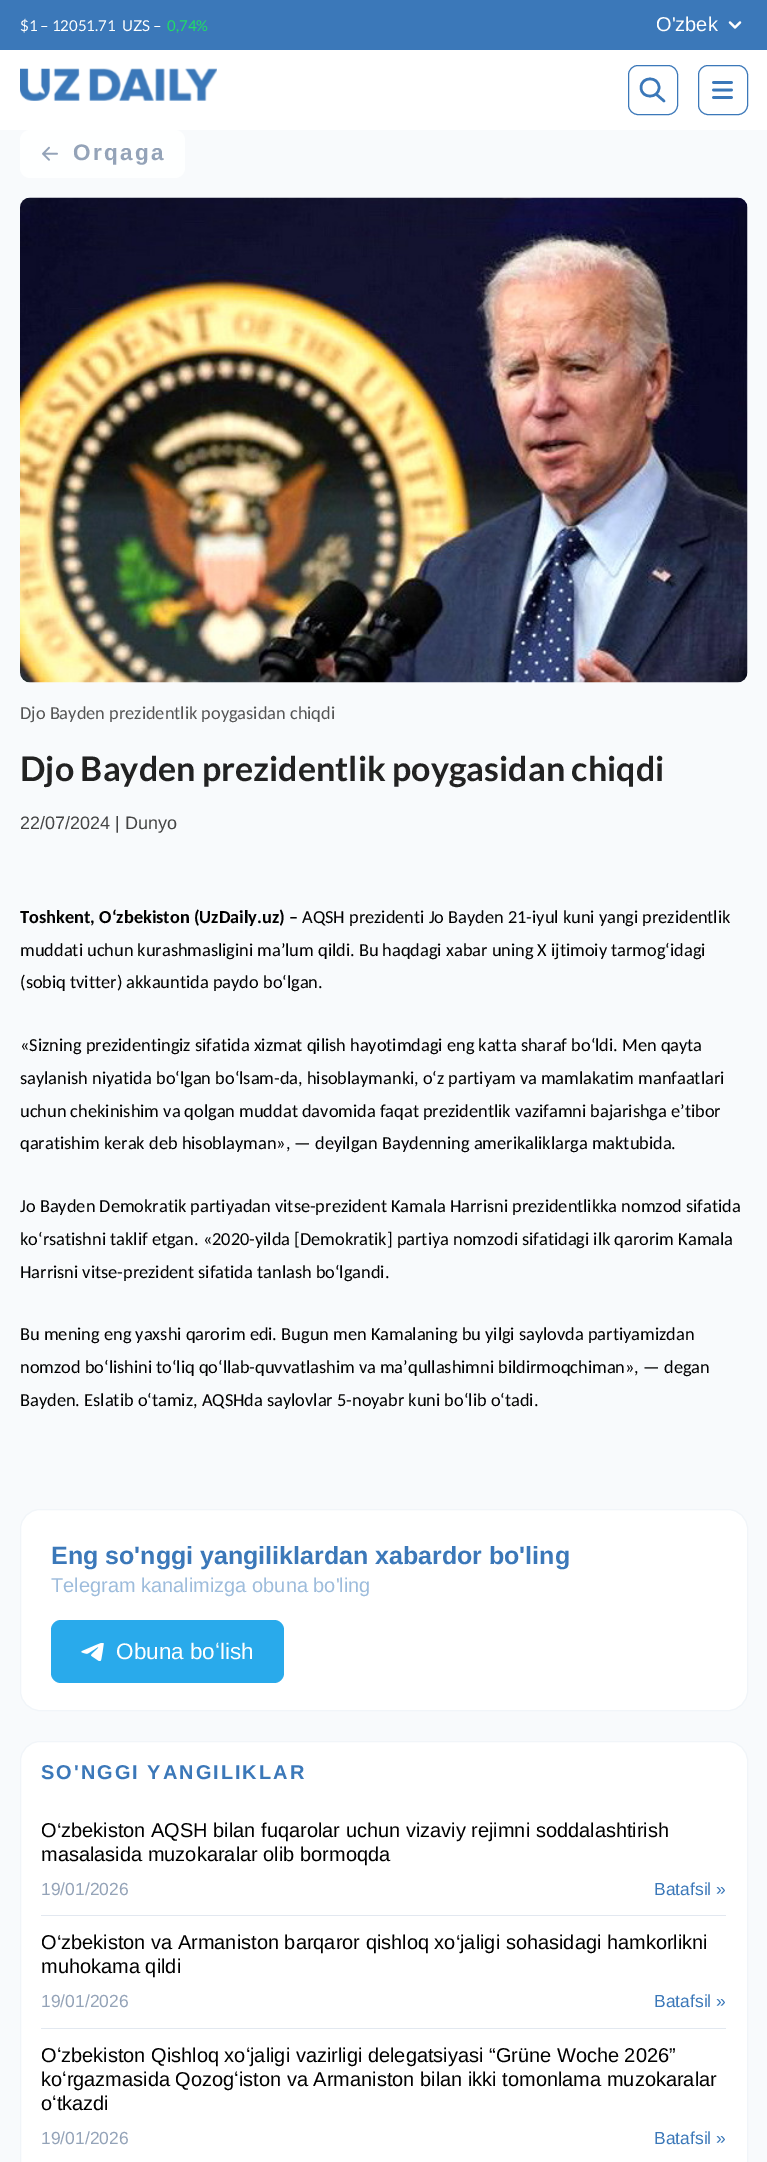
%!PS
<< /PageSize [767 2162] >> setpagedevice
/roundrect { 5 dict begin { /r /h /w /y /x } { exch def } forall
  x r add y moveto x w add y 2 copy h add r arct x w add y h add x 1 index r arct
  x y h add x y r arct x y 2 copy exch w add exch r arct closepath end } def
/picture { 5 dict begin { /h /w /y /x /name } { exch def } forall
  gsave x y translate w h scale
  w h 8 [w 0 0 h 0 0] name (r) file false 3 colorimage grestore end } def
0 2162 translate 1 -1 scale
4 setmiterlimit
0.973 0.98 0.988 setrgbcolor
0 0 767 2162 rectfill
1 setgray
0 50 767 80 rectfill
0.231 0.471 0.725 setrgbcolor
0 0 767 50 rectfill
/Lato-Regular [15 0 0 -15 0 0] selectfont
1 setgray
20 31 moveto ($1 – 12051.71) show
122 31 moveto (UZS –) show
0.129 0.863 0.4 setrgbcolor
167 31 moveto (0,74%) show
/LiberationSans-Regular [20 0 0 -20 0 0] selectfont
1 setgray
656 31 moveto (O'zbek) show
(img1.rgb) 728 21 14 8 picture
(img2.rgb) 20 68 197 33 picture
0.231 0.471 0.725 setrgbcolor
2.5 setlinewidth
1 setlinecap
1 setlinejoin
newpath 664 101 moveto 656 94 lineto 659 87.5 moveto 659 99 641 99 641 87.5 curveto 641 76 659 76 659 87.5 curveto closepath stroke
1 setlinewidth
0 setlinecap
0 setlinejoin
628.5 65.5 49 49 9.5 roundrect stroke
(img3.rgb) 712 81 21 18 picture
698.5 65.5 49 49 9.5 roundrect stroke
0.996 1 1 setrgbcolor
20 130 165 48 10 roundrect fill
(img4.rgb) 42 146 16 15 picture
/LiberationSans-Bold [22.5 0 0 -22.5 0 0] selectfont
0.58 0.639 0.722 setrgbcolor
73 160 moveto 2.25 0 (Orqaga) ashow
(img5.rgb) 20 197 728 486 picture
/Carlito-Regular [18.35 0 0 -18.35 0 0] selectfont
0.333 setgray
20 719 moveto (Djo Bayden prezidentlik poygasidan chiqdi) show
/Lato-Bold [34 0 0 -34 0 0] selectfont
0.133 setgray
20 781 moveto (Djo Bayden prezidentlik poygasidan chiqdi) show
/LiberationSans-Regular [18 0 0 -18 0 0] selectfont
0.267 setgray
20 829 moveto (22/07/2024 | Dunyo) show
/Carlito-Bold [18.35 0 0 -18.35 0 0] selectfont
0 setgray
20 923 moveto (Toshkent, O‘zbekiston \(UzDaily.uz\) –) show
/Carlito-Regular [18.35 0 0 -18.35 0 0] selectfont
302 923 moveto (AQSH prezidenti Jo Bayden 21-iyul kuni yangi prezidentlik) show
20 956 moveto (muddati uchun kurashmasligini ma’lum qildi. Bu haqdagi xabar uning X ijtimoiy tarmog‘idagi) show
20 988 moveto (\(sobiq tvitter\) akkauntida paydo bo‘lgan.) show
20 1051 moveto («Sizning prezidentingiz sifatida xizmat qilish hayotimdagi eng katta sharaf bo‘ldi. Men qayta) show
20 1084 moveto (saylanish niyatida bo‘lgan bo‘lsam-da, hisoblaymanki, o‘z partiyam va mamlakatim manfaatlari) show
20 1117 moveto (uchun chekinishim va qolgan muddat davomida faqat prezidentlik vazifamni bajarishga e’tibor) show
20 1149 moveto (qaratishim kerak deb hisoblayman», — deyilgan Baydenning amerikaliklarga maktubida.) show
20 1212 moveto (Jo Bayden Demokratik partiyadan vitse-prezident Kamala Harrisni prezidentlikka nomzod sifatida) show
20 1245 moveto (ko‘rsatishni taklif etgan. «2020-yilda [Demokratik] partiya nomzodi sifatidagi ilk qarorim Kamala) show
20 1278 moveto (Harrisni vitse-prezident sifatida tanlash bo‘lgandi.) show
20 1340 moveto (Bu mening eng yaxshi qarorim edi. Bugun men Kamalaning bu yilgi saylovda partiyamizdan) show
20 1373 moveto (nomzod bo‘lishini to‘liq qo‘llab-quvvatlashim va ma’qullashimni bildirmoqchiman», — degan) show
20 1406 moveto (Bayden. Eslatib o‘tamiz, AQSHda saylovlar 5-noyabr kuni bo‘lib o‘tadi.) show
1 setgray
20.5 1509.5 727 201 19.5 roundrect gsave fill grestore
0.945 0.961 0.976 setrgbcolor
stroke
/LiberationSans-Bold [25 0 0 -25 0 0] selectfont
0.231 0.471 0.725 setrgbcolor
51 1564 moveto (Eng so'nggi yangiliklardan xabardor bo'ling) show
/LiberationSans-Regular [20 0 0 -20 0 0] selectfont
0.616 0.737 0.863 setrgbcolor
51 1592 moveto (Telegram kanalimizga obuna bo'ling) show
0.161 0.667 0.922 setrgbcolor
51 1620 233 63 10 roundrect fill
(img6.rgb) 81 1643 23 18 picture
/LiberationSans-Regular [22.5 0 0 -22.5 0 0] selectfont
1 setgray
116 1659 moveto (Obuna boʻlish) show
20.5 1741.5 727 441 19.5 roundrect gsave fill grestore
0.945 0.961 0.976 setrgbcolor
stroke
/LiberationSans-Bold [20 0 0 -20 0 0] selectfont
0.231 0.471 0.725 setrgbcolor
41 1779 moveto 2 0 (SO'NGGI YANGILIKLAR) ashow
0.886 0.91 0.941 setrgbcolor
41 1915 685 1 rectfill
/LiberationSans-Regular [20 0 0 -20 0 0] selectfont
0 setgray
41 1837 moveto (O‘zbekiston AQSH bilan fuqarolar uchun vizaviy rejimni soddalashtirish) show
41 1861 moveto (masalasida muzokaralar olib bormoqda) show
/LiberationSans-Regular [17.5 0 0 -17.5 0 0] selectfont
0.58 0.639 0.722 setrgbcolor
41 1895 moveto (19/01/2026) show
0.231 0.471 0.725 setrgbcolor
654 1895 moveto (Batafsil ») show
0.886 0.91 0.941 setrgbcolor
41 2028 685 1 rectfill
/LiberationSans-Regular [20 0 0 -20 0 0] selectfont
0 setgray
41 1949 moveto (O‘zbekiston va Armaniston barqaror qishloq xo‘jaligi sohasidagi hamkorlikni) show
41 1973 moveto (muhokama qildi) show
/LiberationSans-Regular [17.5 0 0 -17.5 0 0] selectfont
0.58 0.639 0.722 setrgbcolor
41 2007 moveto (19/01/2026) show
0.231 0.471 0.725 setrgbcolor
654 2007 moveto (Batafsil ») show
/LiberationSans-Regular [20 0 0 -20 0 0] selectfont
0 setgray
41 2062 moveto (Oʻzbekiston Qishloq xoʻjaligi vazirligi delegatsiyasi “Grüne Woche 2026”) show
41 2086 moveto (koʻrgazmasida Qozogʻiston va Armaniston bilan ikki tomonlama muzokaralar) show
41 2110 moveto (oʻtkazdi) show
/LiberationSans-Regular [17.5 0 0 -17.5 0 0] selectfont
0.58 0.639 0.722 setrgbcolor
41 2144 moveto (19/01/2026) show
0.231 0.471 0.725 setrgbcolor
654 2144 moveto (Batafsil ») show
showpage
